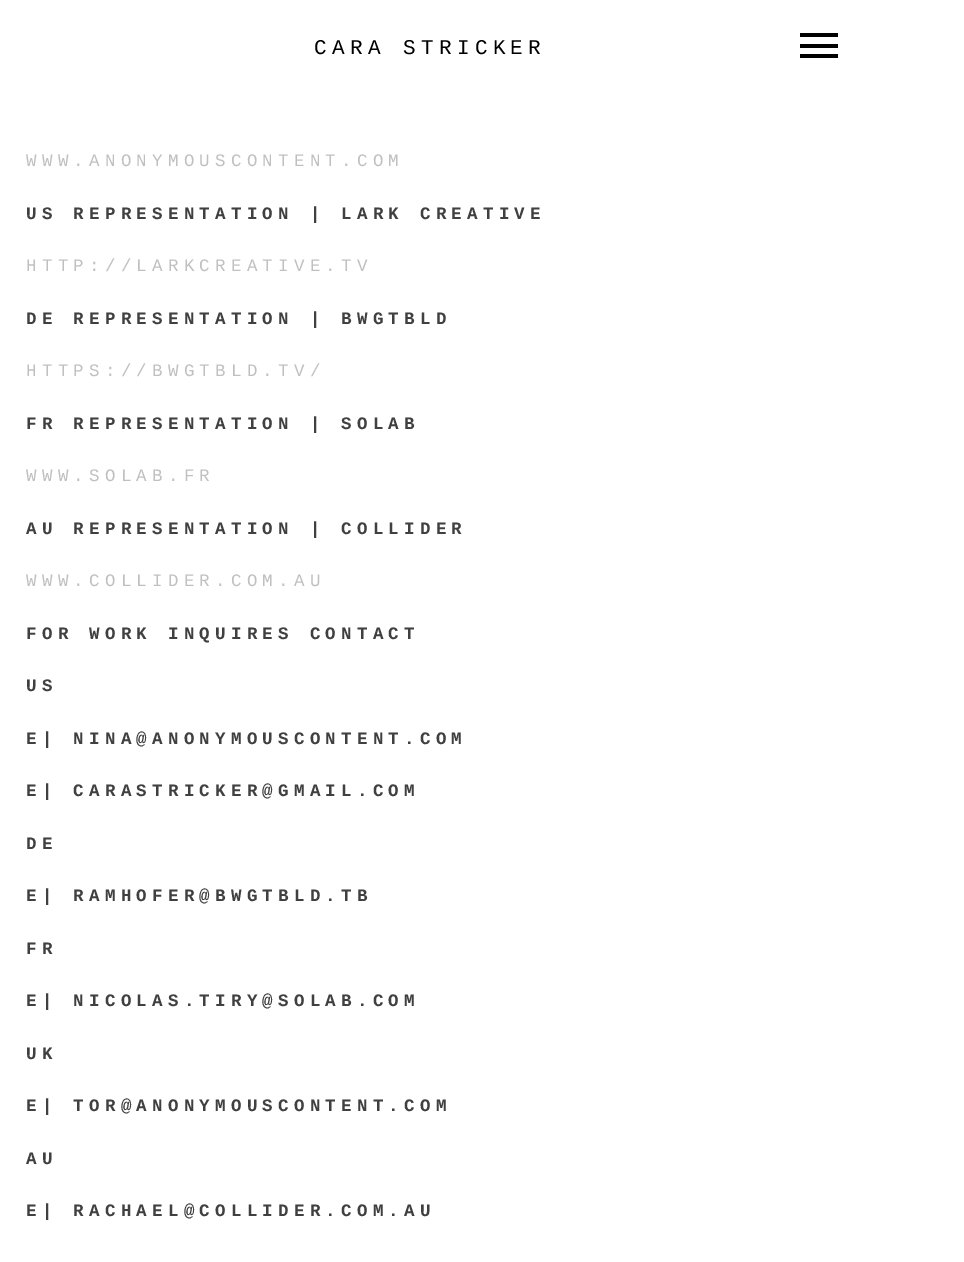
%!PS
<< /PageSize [964 1262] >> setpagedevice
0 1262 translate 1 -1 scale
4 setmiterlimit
1 setgray
0 0 964 1262 rectfill
/LiberationMono-Regular [21 0 0 -21 0 0] selectfont
0 setgray
314 54 moveto 5.25 0 (CARA STRICKER) ashow
800 33 38 4 rectfill
800 44 38 4 rectfill
800 54 38 4 rectfill
/LiberationMono-Regular [17.5 0 0 -17.5 0 0] selectfont
0.753 setgray
26 166 moveto 5.25 0 (WWW.ANONYMOUSCONTENT.COM) ashow
/LiberationMono-Bold [17.5 0 0 -17.5 0 0] selectfont
0.251 setgray
26 219 moveto 5.25 0 (US REPRESENTATION | LARK CREATIVE) ashow
/LiberationMono-Regular [17.5 0 0 -17.5 0 0] selectfont
0.753 setgray
26 271 moveto 5.25 0 (HTTP://LARKCREATIVE.TV) ashow
/LiberationMono-Bold [17.5 0 0 -17.5 0 0] selectfont
0.251 setgray
26 324 moveto 5.25 0 (DE REPRESENTATION | BWGTBLD) ashow
/LiberationMono-Regular [17.5 0 0 -17.5 0 0] selectfont
0.753 setgray
26 376 moveto 5.25 0 (HTTPS://BWGTBLD.TV/) ashow
/LiberationMono-Bold [17.5 0 0 -17.5 0 0] selectfont
0.251 setgray
26 429 moveto 5.25 0 (FR REPRESENTATION | SOLAB) ashow
/LiberationMono-Regular [17.5 0 0 -17.5 0 0] selectfont
0.753 setgray
26 481 moveto 5.25 0 (WWW.SOLAB.FR) ashow
/LiberationMono-Bold [17.5 0 0 -17.5 0 0] selectfont
0.251 setgray
26 534 moveto 5.25 0 (AU REPRESENTATION | COLLIDER) ashow
/LiberationMono-Regular [17.5 0 0 -17.5 0 0] selectfont
0.753 setgray
26 586 moveto 5.25 0 (WWW.COLLIDER.COM.AU) ashow
/LiberationMono-Bold [17.5 0 0 -17.5 0 0] selectfont
0.251 setgray
26 639 moveto 5.25 0 (FOR WORK INQUIRES CONTACT) ashow
26 691 moveto 5.25 0 (US) ashow
26 744 moveto 5.25 0 (E| NINA@ANONYMOUSCONTENT.COM) ashow
26 796 moveto 5.25 0 (E| CARASTRICKER@GMAIL.COM) ashow
26 849 moveto 5.25 0 (DE) ashow
26 901 moveto 5.25 0 (E| RAMHOFER@BWGTBLD.TB) ashow
26 954 moveto 5.25 0 (FR) ashow
26 1006 moveto 5.25 0 (E| NICOLAS.TIRY@SOLAB.COM) ashow
26 1059 moveto 5.25 0 (UK) ashow
26 1111 moveto 5.25 0 (E| TOR@ANONYMOUSCONTENT.COM) ashow
26 1164 moveto 5.25 0 (AU) ashow
26 1216 moveto 5.25 0 (E| RACHAEL@COLLIDER.COM.AU) ashow
showpage
